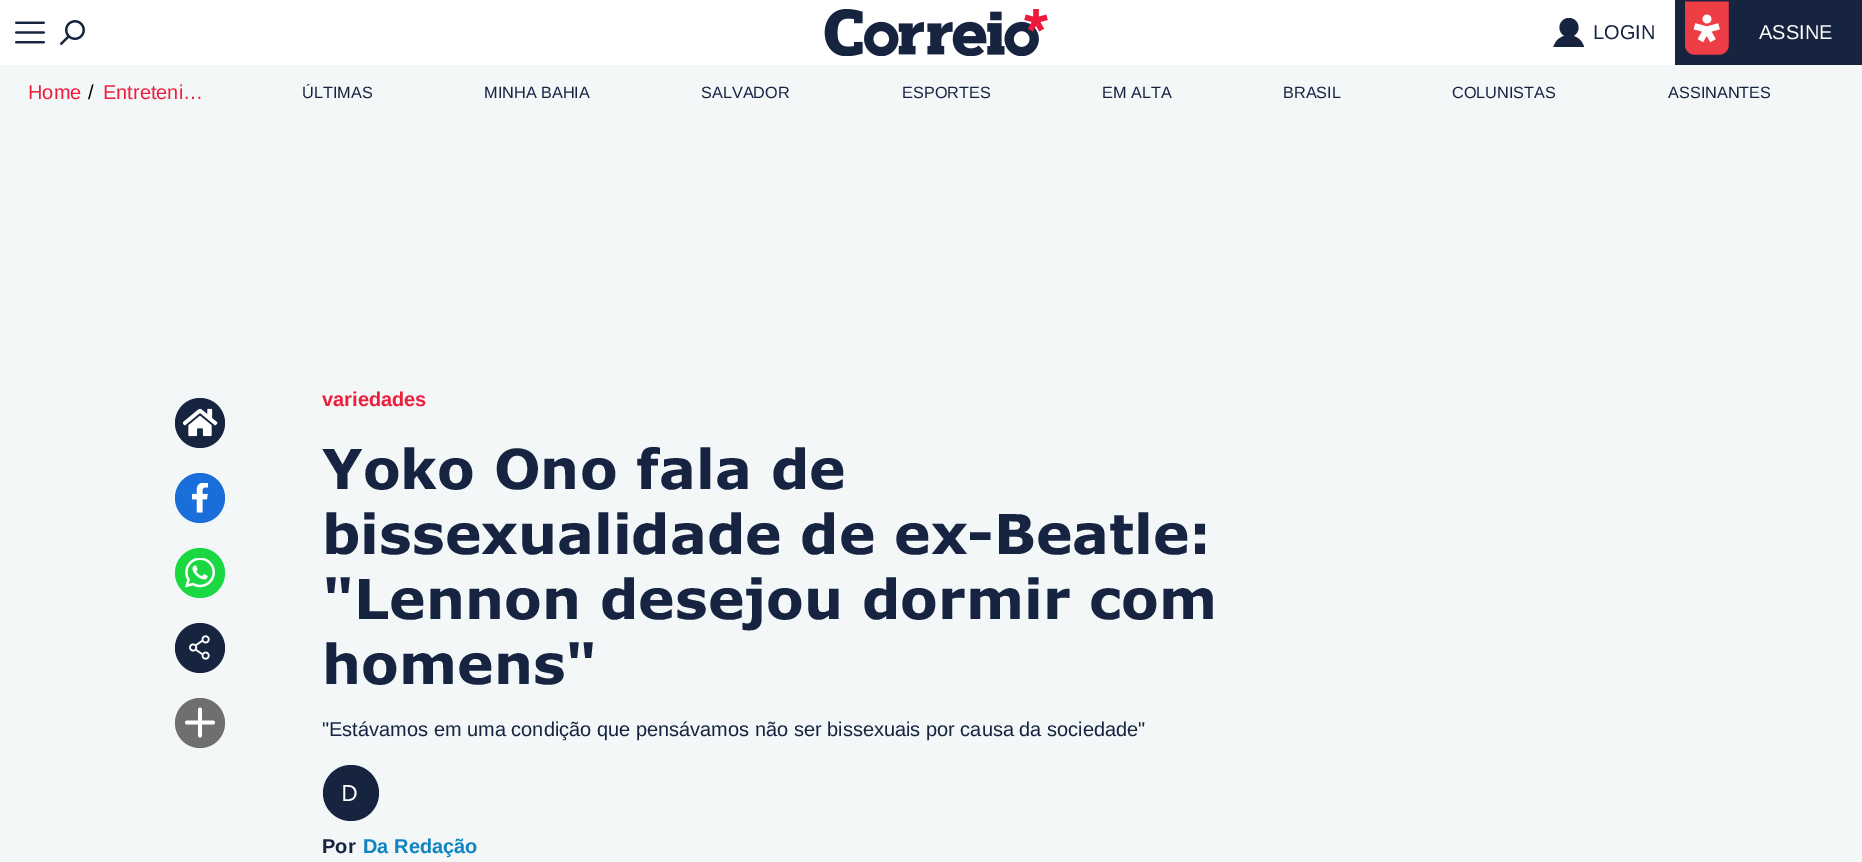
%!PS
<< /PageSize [1862 862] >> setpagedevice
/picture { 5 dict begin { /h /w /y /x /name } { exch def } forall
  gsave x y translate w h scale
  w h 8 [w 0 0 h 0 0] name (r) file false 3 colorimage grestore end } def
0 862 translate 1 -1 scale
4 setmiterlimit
0.957 0.969 0.973 setrgbcolor
0 0 1862 862 rectfill
1 setgray
0 0 1675 65 rectfill
(img1.rgb) 15 21 30 23 picture
(img2.rgb) 60 20 25 25 picture
(img3.rgb) 824 9 224 47 picture
0.086 0.141 0.251 setrgbcolor
newpath 1569 27.5 9.5 0 360 arc closepath fill
newpath 1584 47 moveto 1580 31.5 1557.5 31.5 1553.5 47 curveto fill
/LiberationSans-Regular [20 0 0 -20 0 0] selectfont
0.086 0.141 0.255 setrgbcolor
1593 39 moveto (LOGIN) show
0.086 0.141 0.251 setrgbcolor
1675 0 187 65 rectfill
(img4.rgb) 1685 1 44 54 picture
1 setgray
1759 39 moveto (ASSINE) show
0.929 0.114 0.235 setrgbcolor
28 99 moveto (Home) show
0 setgray
88 99 moveto (/) show
0.929 0.114 0.235 setrgbcolor
103 99 moveto (Entreteni…) show
/LiberationSans-Regular [16.25 0 0 -16.25 0 0] selectfont
0.086 0.141 0.255 setrgbcolor
302 98 moveto (ÚLTIMAS) show
484 98 moveto (MINHA BAHIA) show
701 98 moveto (SALVADOR) show
902 98 moveto (ESPORTES) show
1102 98 moveto (EM ALTA) show
1283 98 moveto (BRASIL) show
1452 98 moveto (COLUNISTAS) show
1668 98 moveto (ASSINANTES) show
0.086 0.141 0.251 setrgbcolor
newpath 200 423 25 0 360 arc closepath fill
(img5.rgb) 183 408 35 29 picture
0.102 0.431 0.855 setrgbcolor
newpath 200 498 25 0 360 arc closepath fill
(img6.rgb) 191 483 18 30 picture
0.106 0.843 0.255 setrgbcolor
newpath 200 573 25 0 360 arc closepath fill
(img7.rgb) 185 558 30 30 picture
0.086 0.141 0.251 setrgbcolor
newpath 200 648 25 0 360 arc closepath fill
(img8.rgb) 189 635 21 25 picture
0.439 0.435 0.435 setrgbcolor
newpath 200 723 25 0 360 arc closepath fill
1 setgray
3.8 setlinewidth
1 setlinecap
1 setlinejoin
newpath 200 709.5 moveto 200 735.5 lineto 187 722.5 moveto 213 722.5 lineto stroke
/LiberationSans-Bold [20 0 0 -20 0 0] selectfont
0.929 0.114 0.235 setrgbcolor
322 406 moveto (variedades) show
/Verdana-Bold [55 0 0 -55 0 0] selectfont
0.086 0.141 0.255 setrgbcolor
322 489 moveto (Yoko Ono fala de) show
322 554 moveto (bissexualidade de ex-Beatle:) show
322 619 moveto ("Lennon desejou dormir com) show
322 684 moveto (homens") show
/LiberationSans-Regular [20 0 0 -20 0 0] selectfont
322 736 moveto ("Estávamos em uma condição que pensávamos não ser bissexuais por causa da sociedade") show
0.086 0.141 0.251 setrgbcolor
newpath 351 793 28 0 360 arc closepath fill
/Verdana-Regular [22 0 0 -22 0 0] selectfont
1 setgray
341 801 moveto (D) show
/LiberationSans-Bold [20 0 0 -20 0 0] selectfont
0.086 0.141 0.255 setrgbcolor
322 853 moveto (Por) show
0.063 0.518 0.753 setrgbcolor
363 853 moveto (Da Redação) show
showpage
